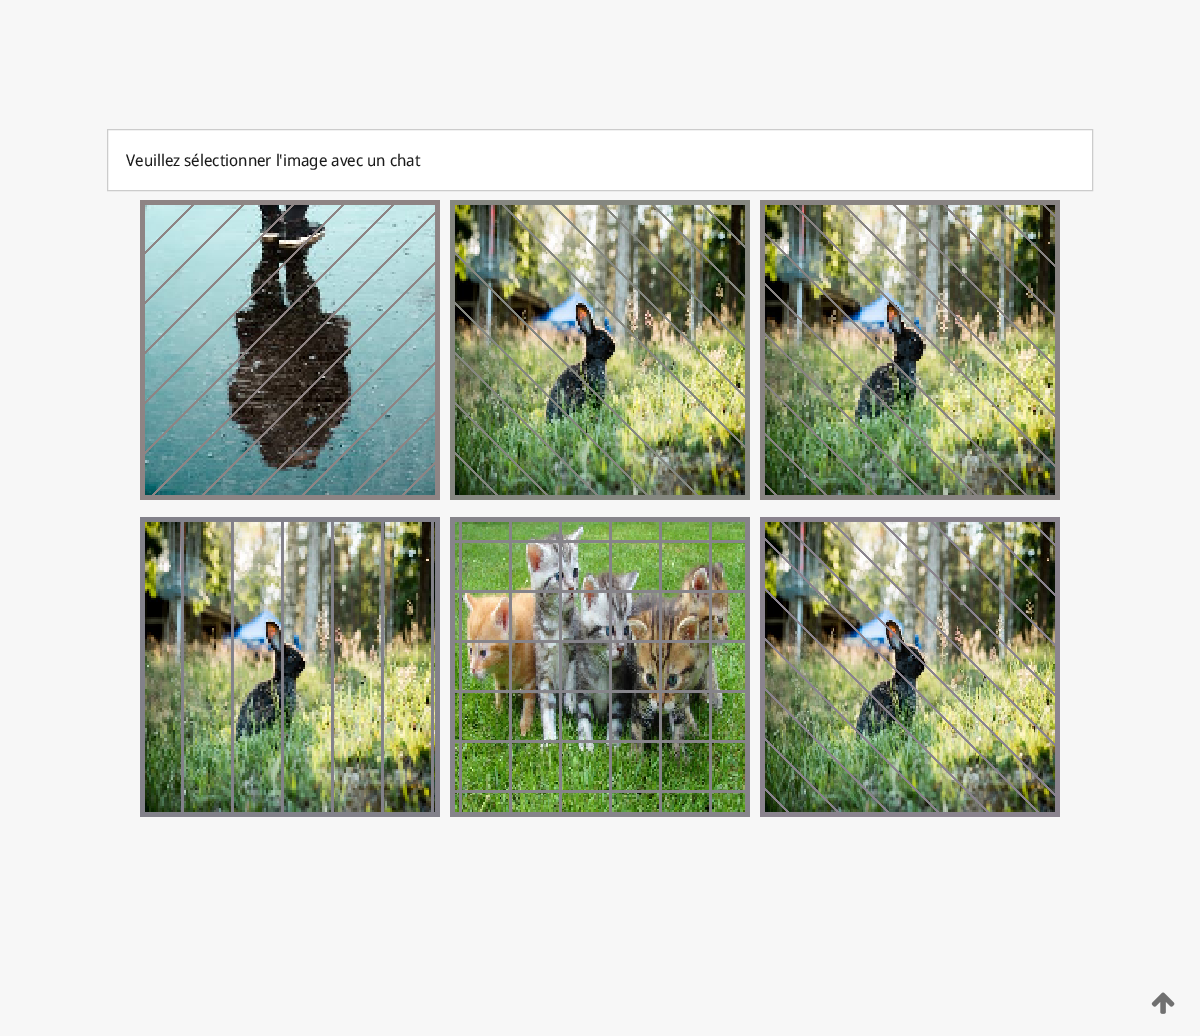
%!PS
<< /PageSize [1200 1036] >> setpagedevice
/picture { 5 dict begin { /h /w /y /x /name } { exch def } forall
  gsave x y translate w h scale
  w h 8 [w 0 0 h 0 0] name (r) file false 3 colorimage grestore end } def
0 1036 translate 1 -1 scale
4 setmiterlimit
0.969 setgray
0 0 1200 1036 rectfill
1 setgray
newpath 107.5 129.5 moveto 1092.5 129.5 lineto 1092.5 190.5 lineto 107.5 190.5 lineto closepath gsave fill grestore
0.8 setgray
stroke
/NotoSansDisplay-Regular [16 0 0 -16 0 0] selectfont
0.102 setgray
126 166 moveto (Veuillez sélectionner l'image avec un chat) show
(img1.rgb) 140 200 300 300 picture
(img2.rgb) 450 200 300 300 picture
(img3.rgb) 760 200 300 300 picture
(img4.rgb) 140 517 300 300 picture
(img5.rgb) 450 517 300 300 picture
(img6.rgb) 760 517 300 300 picture
(img7.rgb) 1151 992 24 22 picture
showpage
